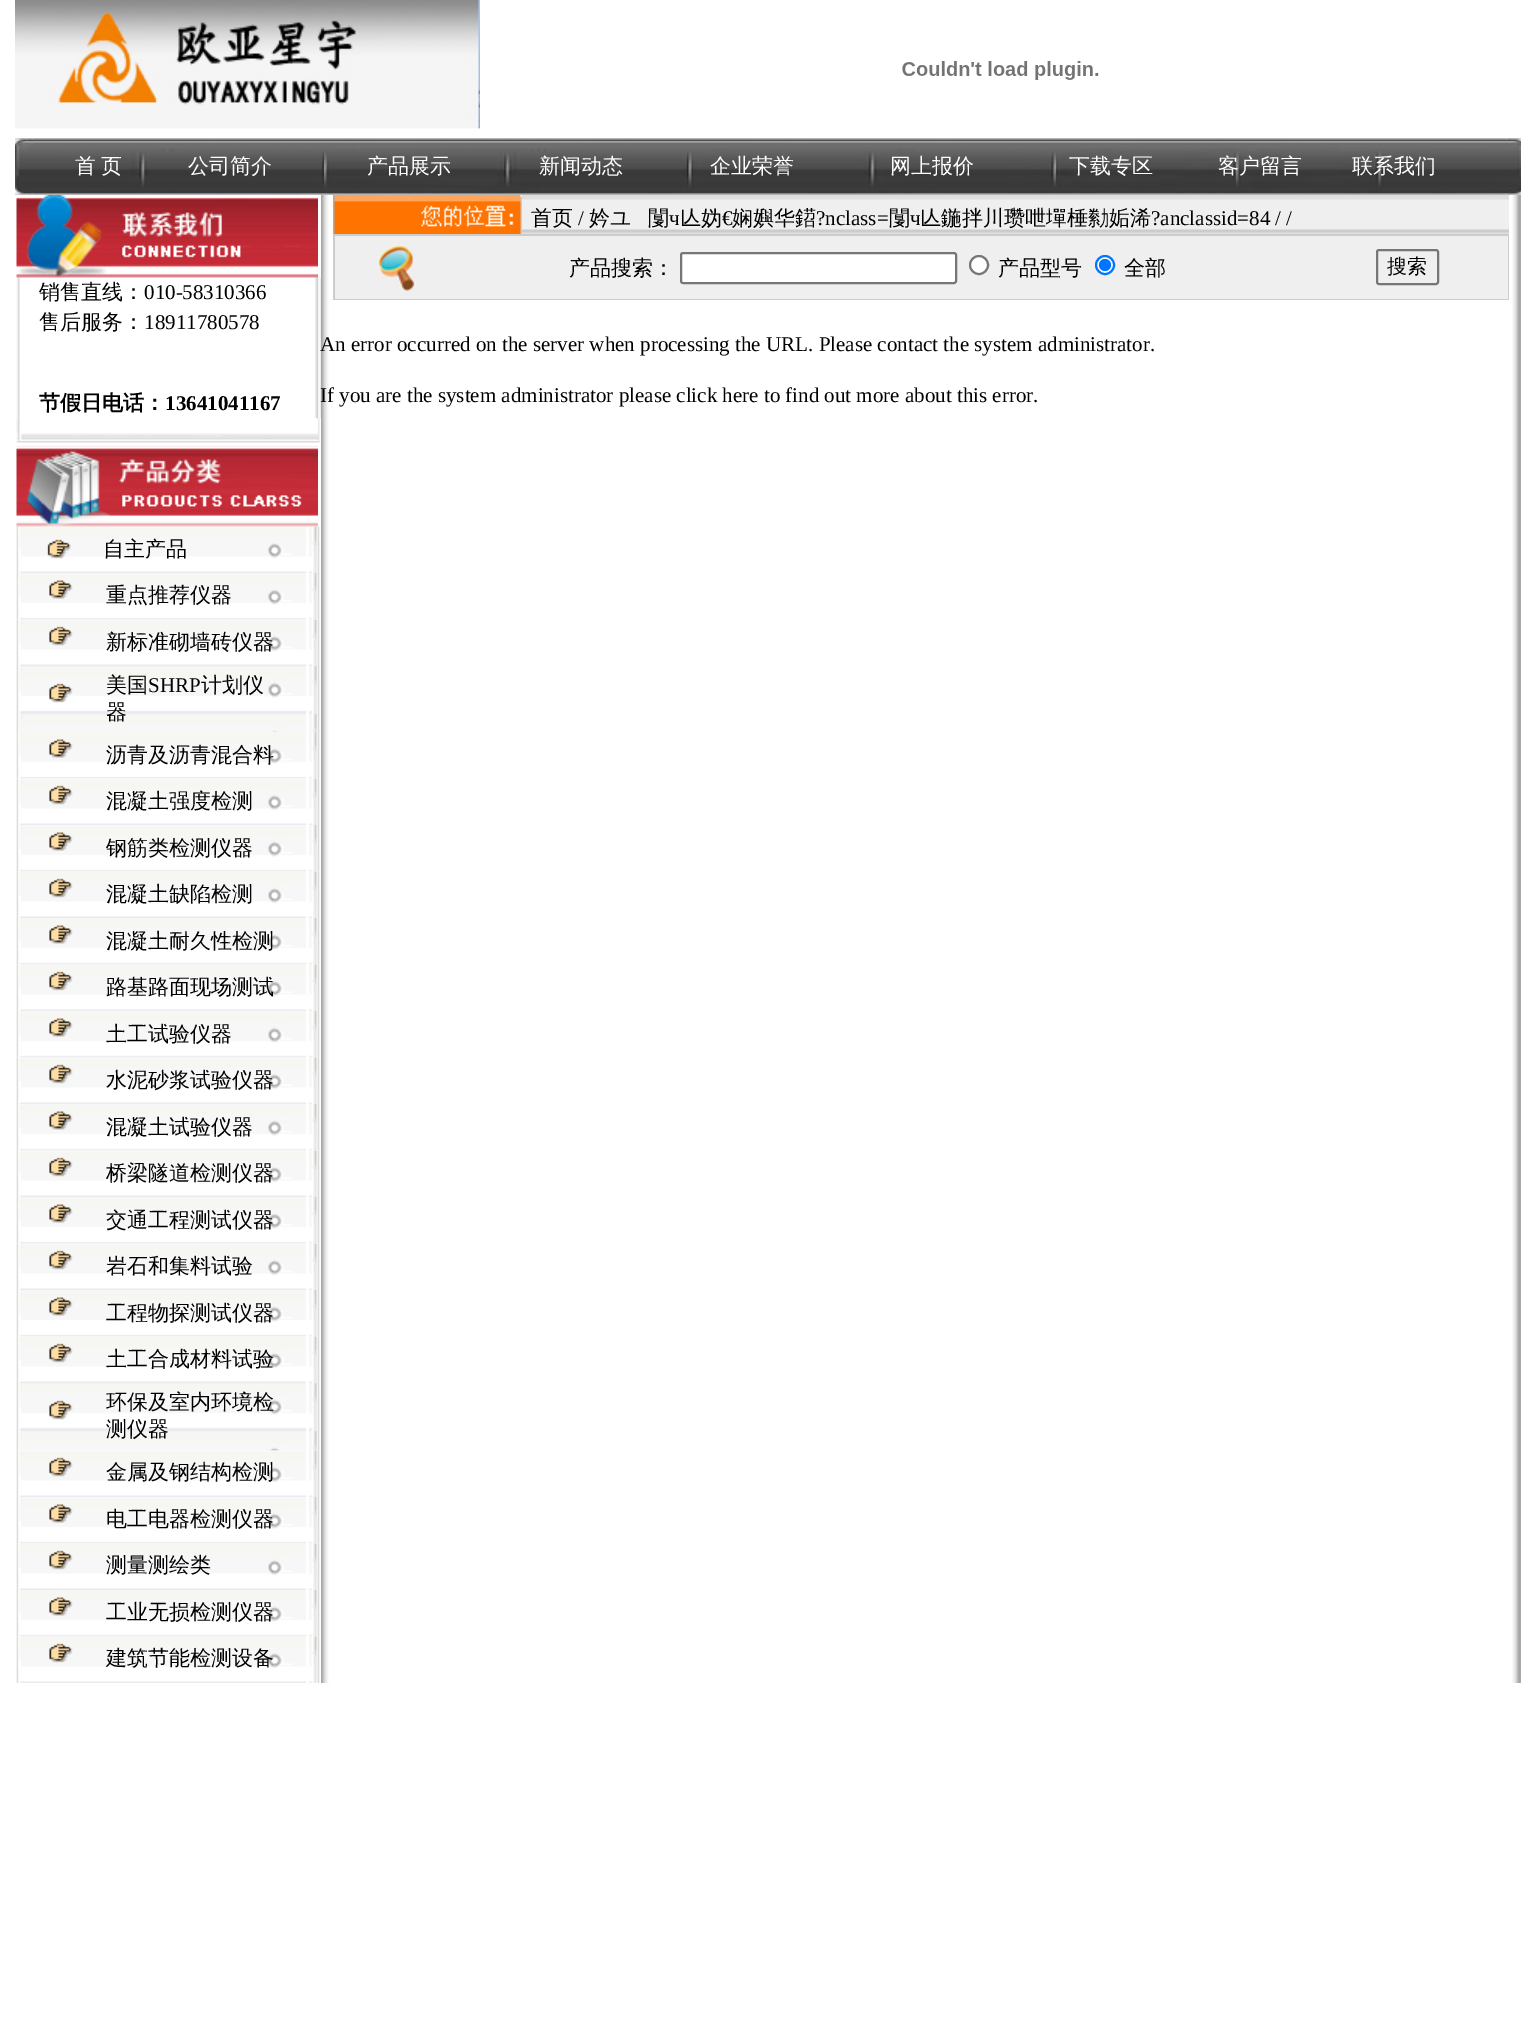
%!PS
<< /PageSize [1535 2023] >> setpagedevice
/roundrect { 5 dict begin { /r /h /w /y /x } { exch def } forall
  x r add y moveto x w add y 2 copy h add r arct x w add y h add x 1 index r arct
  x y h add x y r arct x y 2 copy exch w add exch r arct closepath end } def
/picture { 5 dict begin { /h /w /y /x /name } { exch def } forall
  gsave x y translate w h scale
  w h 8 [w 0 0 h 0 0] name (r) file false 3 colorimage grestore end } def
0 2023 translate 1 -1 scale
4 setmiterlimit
1 setgray
0 0 1535 2023 rectfill
(img1.rgb) 15 0 465 129 picture
(img2.rgb) 902 61 197 19 picture
(img3.rgb) 15 138 1506 57 picture
/WenQuanYiZenHei-Medium [21 0 0 -21 0 0] selectfont
75 173 moveto -1 0 32 (首 页) widthshow
188 173 moveto (公司简介) show
367 173 moveto (产品展示) show
539 173 moveto (新闻动态) show
710 173 moveto (企业荣誉) show
890 173 moveto (网上报价) show
1069 173 moveto (下载专区) show
1218 173 moveto (客户留言) show
1352 173 moveto (联系我们) show
(img5.rgb) 16 277 305 142 picture
(img4.rgb) 16 195 302 83 picture
0 setgray
39 299 moveto (销售直线：) show
/LiberationSerif-Regular [21 0 0 -21 0 0] selectfont
144 299 moveto (010-58310366) show
/WenQuanYiZenHei-Medium [21 0 0 -21 0 0] selectfont
39 329 moveto (售后服务：) show
/LiberationSerif-Regular [21 0 0 -21 0 0] selectfont
144 329 moveto (18911780578) show
/WenQuanYiZenHei-Bold [21 0 0 -21 0 0] selectfont
39 410 moveto (节假日电话：) show
/LiberationSerif-Bold [21 0 0 -21 0 0] selectfont
165 410 moveto (13641041167) show
(img6.rgb) 16 418 305 25 picture
(img8.rgb) 16 526 304 47 picture
(img7.rgb) 16 445 302 82 picture
(img9.rgb) 47 539 24 20 picture
/WenQuanYiZenHei-Medium [21 0 0 -21 0 0] selectfont
103 556 moveto (自主产品) show
(img10.rgb) 16 573 304 47 picture
(img11.rgb) 49 580 24 19 picture
106 602 moveto (重点推荐仪器) show
(img12.rgb) 16 619 304 47 picture
(img13.rgb) 49 626 24 20 picture
106 649 moveto (新标准砌墙砖仪器) show
(img14.rgb) 16 666 304 66 picture
(img15.rgb) 49 683 24 20 picture
106 692 moveto (美国) show
/LiberationSerif-Regular [21 0 0 -21 0 0] selectfont
148 692 moveto (SHRP) show
/WenQuanYiZenHei-Medium [21 0 0 -21 0 0] selectfont
201 692 moveto (计划仪) show
106 719 moveto (器) show
(img16.rgb) 16 732 304 47 picture
(img17.rgb) 49 739 24 19 picture
106 762 moveto (沥青及沥青混合料) show
(img18.rgb) 16 778 304 47 picture
(img13.rgb) 49 785 24 20 picture
106 808 moveto (混凝土强度检测) show
(img19.rgb) 16 825 304 47 picture
(img11.rgb) 49 832 24 19 picture
106 855 moveto (钢筋类检测仪器) show
(img20.rgb) 16 871 304 47 picture
(img13.rgb) 49 878 24 20 picture
106 901 moveto (混凝土缺陷检测) show
(img21.rgb) 16 918 304 47 picture
(img11.rgb) 49 925 24 19 picture
106 948 moveto (混凝土耐久性检测) show
(img20.rgb) 16 964 304 47 picture
(img13.rgb) 49 971 24 20 picture
106 994 moveto (路基路面现场测试) show
(img22.rgb) 16 1011 304 47 picture
(img11.rgb) 49 1018 24 19 picture
106 1041 moveto (土工试验仪器) show
(img12.rgb) 16 1057 304 47 picture
(img13.rgb) 49 1064 24 20 picture
106 1087 moveto (水泥砂浆试验仪器) show
(img23.rgb) 16 1104 304 47 picture
(img11.rgb) 49 1111 24 19 picture
106 1134 moveto (混凝土试验仪器) show
(img24.rgb) 16 1150 304 47 picture
(img13.rgb) 49 1157 24 20 picture
106 1180 moveto (桥梁隧道检测仪器) show
(img25.rgb) 16 1197 304 47 picture
(img11.rgb) 49 1204 24 19 picture
106 1227 moveto (交通工程测试仪器) show
(img18.rgb) 16 1243 304 47 picture
(img13.rgb) 49 1250 24 20 picture
106 1273 moveto (岩石和集料试验) show
(img26.rgb) 16 1290 304 47 picture
(img11.rgb) 49 1297 24 19 picture
106 1320 moveto (工程物探测试仪器) show
(img27.rgb) 16 1336 304 47 picture
(img13.rgb) 49 1343 24 20 picture
106 1366 moveto (土工合成材料试验) show
(img28.rgb) 16 1383 304 68 picture
(img15.rgb) 49 1400 24 20 picture
106 1409 moveto (环保及室内环境检) show
106 1436 moveto (测仪器) show
(img29.rgb) 16 1450 304 47 picture
(img13.rgb) 49 1457 24 20 picture
106 1479 moveto (金属及钢结构检测) show
(img30.rgb) 16 1497 304 47 picture
(img17.rgb) 49 1504 24 19 picture
106 1526 moveto (电工电器检测仪器) show
(img18.rgb) 16 1543 304 47 picture
(img13.rgb) 49 1550 24 20 picture
106 1572 moveto (测量测绘类) show
(img19.rgb) 16 1590 304 47 picture
(img11.rgb) 49 1597 24 19 picture
106 1619 moveto (工业无损检测仪器) show
(img20.rgb) 16 1636 304 47 picture
(img13.rgb) 49 1643 24 20 picture
106 1665 moveto (建筑节能检测设备) show
(img31.rgb) 321 195 1200 1488 picture
(img32.rgb) 333 195 189 39 picture
(img33.rgb) 522 195 987 39 picture
531 225 moveto (首页) show
/LiberationSerif-Regular [21 0 0 -21 0 0] selectfont
578 225 moveto (/) show
/WenQuanYiZenHei-Medium [21 0 0 -21 0 0] selectfont
589 225 moveto (妗ユ) show
648 225 moveto (闅) show
/LiberationSerif-Regular [21 0 0 -21 0 0] selectfont
669 225 moveto (ч) show
/WenQuanYiZenHei-Medium [21 0 0 -21 0 0] selectfont
680 225 moveto (亾妫) show
/LiberationSerif-Regular [21 0 0 -21 0 0] selectfont
722 225 moveto (€) show
/WenQuanYiZenHei-Medium [21 0 0 -21 0 0] selectfont
732 225 moveto (娴嬩华鍣) show
/LiberationSerif-Regular [21 0 0 -21 0 0] selectfont
816 225 moveto (?nclass=) show
/WenQuanYiZenHei-Medium [21 0 0 -21 0 0] selectfont
889 225 moveto (闅) show
/LiberationSerif-Regular [21 0 0 -21 0 0] selectfont
910 225 moveto (ч) show
/WenQuanYiZenHei-Medium [21 0 0 -21 0 0] selectfont
920 225 moveto (亾鍦拌川瓒呭墠棰勬姤浠) show
/LiberationSerif-Regular [21 0 0 -21 0 0] selectfont
1151 225 moveto (?anclassid=84 / /) show
0.8 setgray
333 234 1176 66 rectfill
0.937 setgray
335 236 1173 63 rectfill
(img34.rgb) 378 243 38 48 picture
/WenQuanYiZenHei-Medium [21 0 0 -21 0 0] selectfont
0 setgray
569 275 moveto (产品搜索：) show
1 setgray
681 253 275 30 2 roundrect gsave fill grestore
0.463 setgray
2 setlinewidth
stroke
1 setgray
newpath 979 265 9 0 360 arc closepath gsave fill grestore
0.463 setgray
stroke
0 setgray
998 275 moveto (产品型号) show
1 setgray
newpath 1105 265 9 0 360 arc closepath gsave fill grestore
0 0.459 1 setrgbcolor
stroke
newpath 1105 265 6 0 360 arc closepath fill
0 setgray
1124 275 moveto (全部) show
0.463 setgray
1377 250 61 34 2 roundrect stroke
/WenQuanYiZenHei-Medium [20 0 0 -20 0 0] selectfont
0 setgray
1387 273 moveto (搜索) show
/LiberationSerif-Regular [21 0 0 -21 0 0] selectfont
320 351 moveto (An error occurred on the server when processing the URL. Please contact the system administrator.) show
320 402 moveto (If you are the system administrator please click here to find out more about this error.) show
showpage
